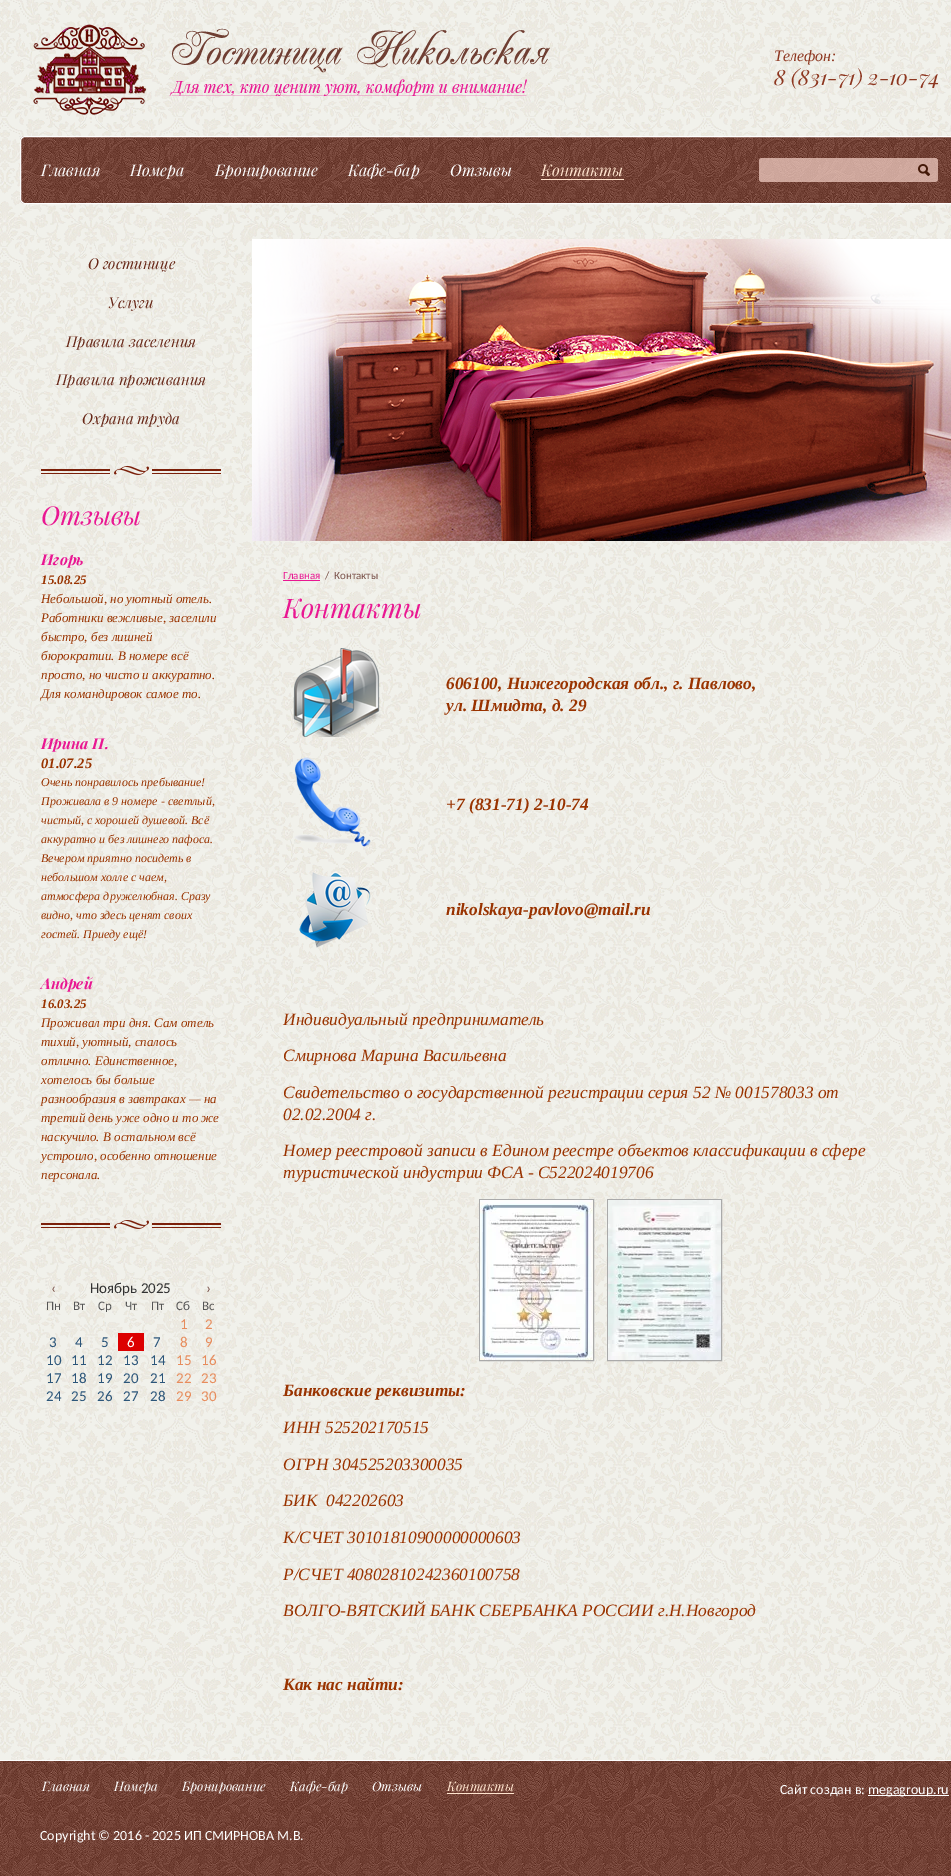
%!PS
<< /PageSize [951 1876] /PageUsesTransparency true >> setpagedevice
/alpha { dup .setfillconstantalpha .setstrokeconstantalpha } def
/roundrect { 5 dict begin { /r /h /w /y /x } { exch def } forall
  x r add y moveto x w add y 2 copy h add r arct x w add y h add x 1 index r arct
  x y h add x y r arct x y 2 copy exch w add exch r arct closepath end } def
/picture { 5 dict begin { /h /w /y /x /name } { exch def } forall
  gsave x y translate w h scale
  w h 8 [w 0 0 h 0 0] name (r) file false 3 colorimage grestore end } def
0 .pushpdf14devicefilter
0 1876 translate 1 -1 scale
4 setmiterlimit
1 setgray
0 0 951 1876 rectfill
(img1.rgb) 0 0 951 1760 picture
(img2.rgb) 33 24 517 91 picture
/LiberationSerif-Italic [16 0 0 -16 0 0] selectfont
0.553 0.212 0.122 setrgbcolor
774 61 moveto (Телефон:) show
/PlayfairDisplay-Italic [21 0 0 -21 0 0] selectfont
774 85 moveto (8 \(831-71\) 2-10-74) show
(img3.rgb) 20 136 931 68 picture
1 setgray
20.5 136.5 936 67 4.5 roundrect stroke
/PlayfairDisplay-Italic [16 0 0 -16 0 0] selectfont
41 176 moveto (Главная) show
130 176 moveto (Номера) show
215 176 moveto (Бронирование) show
348 176 moveto (Кафе-бар) show
450 176 moveto (Отзывы) show
1 0.894 0.808 setrgbcolor
541 176 moveto (Контакты) show
541 179 83 1 rectfill
0.7 alpha
0.965 0.827 0.788 setrgbcolor
759 158 179 24 3 roundrect fill
1 alpha
(img4.rgb) 918 164 12 12 picture
(img5.rgb) 41 466 180 9 picture
/PlayfairDisplay-Italic [15 0 0 -15 0 0] selectfont
0.404 0.153 0.09 setrgbcolor
88 269 moveto (О гостинице) show
108 308 moveto (Услуги) show
66 347 moveto (Правила заселения) show
56 385 moveto (Правила проживания) show
82 424 moveto (Охрана труда) show
(img6.rgb) 41 1220 180 9 picture
/PlayfairDisplay-Italic [26 0 0 -26 0 0] selectfont
0.914 0.09 0.573 setrgbcolor
41 525 moveto (Отзывы) show
/PlayfairDisplay-BoldItalic [15 0 0 -15 0 0] selectfont
41 565 moveto (Игорь) show
/LiberationSerif-BoldItalic [13 0 0 -13 0 0] selectfont
0.6 0.2 0 setrgbcolor
41 584 moveto (15.08.25) show
/LiberationSerif-Italic [13 0 0 -13 0 0] selectfont
41 603 moveto (Небольшой, но уютный отель.) show
41 622 moveto (Работники вежливые, заселили) show
41 641 moveto (быстро, без лишней) show
41 660 moveto (бюрократии. В номере всё) show
41 679 moveto (просто, но чисто и аккуратно.) show
41 698 moveto (Для командировок самое то.) show
/PlayfairDisplay-BoldItalic [15 0 0 -15 0 0] selectfont
0.914 0.09 0.573 setrgbcolor
41 749 moveto (Ирина П.) show
/LiberationSerif-BoldItalic [14.5 0 0 -14.5 0 0] selectfont
0.6 0.2 0 setrgbcolor
41 768 moveto (01.07.25) show
/LiberationSerif-Italic [12 0 0 -12 0 0] selectfont
41 786 moveto (Очень понравилось пребывание!) show
41 805 moveto (Проживала в 9 номере - светлый,) show
41 824 moveto (чистый, с хорошей душевой. Всё) show
41 843 moveto (аккуратно и без лишнего пафоса.) show
41 862 moveto (Вечером приятно посидеть в) show
41 881 moveto (небольшом холле с чаем,) show
41 900 moveto (атмосфера дружелюбная. Сразу) show
41 919 moveto (видно, что здесь ценят своих) show
41 938 moveto (гостей. Приеду ещё!) show
/PlayfairDisplay-BoldItalic [15 0 0 -15 0 0] selectfont
0.914 0.09 0.573 setrgbcolor
41 989 moveto (Андрей) show
/LiberationSerif-BoldItalic [13 0 0 -13 0 0] selectfont
0.6 0.2 0 setrgbcolor
41 1008 moveto (16.03.25) show
/LiberationSerif-Italic [13 0 0 -13 0 0] selectfont
41 1027 moveto (Проживал три дня. Сам отель) show
41 1046 moveto (тихий, уютный, спалось) show
41 1065 moveto (отлично. Единственное,) show
41 1084 moveto (хотелось бы больше) show
41 1103 moveto (разнообразия в завтраках — на) show
41 1122 moveto (третий день уже одно и то же) show
41 1141 moveto (наскучило. В остальном всё) show
41 1160 moveto (устроило, особенно отношение) show
41 1179 moveto (персонала.) show
/Carlito-Regular [15 0 0 -15 0 0] selectfont
0.471 0.31 0.278 setrgbcolor
51 1293 moveto (‹) show
0.196 setgray
90 1293 moveto (Ноябрь 2025) show
0.471 0.31 0.278 setrgbcolor
206 1293 moveto (›) show
/Carlito-Regular [13 0 0 -13 0 0] selectfont
0.333 setgray
46 1310 moveto (Пн) show
73 1310 moveto (Вт) show
98 1310 moveto (Ср) show
125 1310 moveto (Чт) show
151 1310 moveto (Пт) show
176 1310 moveto (Сб) show
202 1310 moveto (Вс) show
/Carlito-Regular [15 0 0 -15 0 0] selectfont
0.906 0.549 0.361 setrgbcolor
180 1329 moveto (1) show
205 1329 moveto (2) show
0.173 0.337 0.478 setrgbcolor
49 1347 moveto (3) show
75 1347 moveto (4) show
101 1347 moveto (5) show
0.863 0 0 setrgbcolor
118 1333 26 18 rectfill
1 setgray
127 1347 moveto (6) show
0.173 0.337 0.478 setrgbcolor
153 1347 moveto (7) show
0.906 0.549 0.361 setrgbcolor
180 1347 moveto (8) show
205 1347 moveto (9) show
0.173 0.337 0.478 setrgbcolor
46 1365 moveto (10) show
71 1365 moveto (11) show
97 1365 moveto (12) show
123 1365 moveto (13) show
150 1365 moveto (14) show
0.906 0.549 0.361 setrgbcolor
176 1365 moveto (15) show
201 1365 moveto (16) show
0.173 0.337 0.478 setrgbcolor
46 1383 moveto (17) show
71 1383 moveto (18) show
97 1383 moveto (19) show
123 1383 moveto (20) show
150 1383 moveto (21) show
0.906 0.549 0.361 setrgbcolor
176 1383 moveto (22) show
201 1383 moveto (23) show
0.173 0.337 0.478 setrgbcolor
46 1401 moveto (24) show
71 1401 moveto (25) show
97 1401 moveto (26) show
123 1401 moveto (27) show
150 1401 moveto (28) show
0.906 0.549 0.361 setrgbcolor
176 1401 moveto (29) show
201 1401 moveto (30) show
(img7.rgb) 252 239 699 302 picture
/Carlito-Regular [11 0 0 -11 0 0] selectfont
0.914 0.09 0.573 setrgbcolor
283 579 moveto (Главная) show
283 580 37 1 rectfill
0.471 0.31 0.278 setrgbcolor
325 579 moveto (/  Контакты) show
/PlayfairDisplay-Italic [27 0 0 -27 0 0] selectfont
0.914 0.09 0.573 setrgbcolor
283 618 moveto (Контакты) show
(img8.rgb) 293 648 88 89 picture
/LiberationSerif-BoldItalic [17.35 0 0 -17.35 0 0] selectfont
0.6 0.2 0 setrgbcolor
446 689 moveto (606100, Нижегородская обл., г. Павлово,) show
446 711 moveto (ул. Шмидта, д. 29) show
(img9.rgb) 294 757 77 90 picture
446 810 moveto (+7 \(831-71\) 2-10-74) show
(img10.rgb) 299 871 79 77 picture
446 915 moveto (nikolskaya-pavlovo@mail.ru) show
/LiberationSerif-Italic [17.35 0 0 -17.35 0 0] selectfont
283 1025 moveto (Индивидуальный предприниматель) show
283 1061 moveto (Смирнова Марина Васильевна) show
283 1098 moveto (Свидетельство о государственной регистрации серия 52 № 001578033 от) show
283 1120 moveto (02.02.2004 г.) show
283 1156 moveto (Номер реестровой записи в Едином реестре объектов классификации в сфере) show
283 1178 moveto (туристической индустрии ФСА - С522024019706) show
0.667 setgray
479.5 1199.5 114 161 rectstroke
607.5 1199.5 114 161 rectstroke
(img11.rgb) 480 1200 113 160 picture
(img12.rgb) 608 1200 113 160 picture
/LiberationSerif-BoldItalic [17.35 0 0 -17.35 0 0] selectfont
0.6 0.2 0 setrgbcolor
283 1396 moveto (Банковские реквизиты:) show
/LiberationSerif-Italic [17.35 0 0 -17.35 0 0] selectfont
283 1433 moveto (ИНН 525202170515) show
283 1470 moveto (ОГРН 304525203300035) show
283 1506 moveto (БИК  042202603) show
283 1543 moveto (К/СЧЕТ 30101810900000000603) show
283 1580 moveto (Р/СЧЕТ 40802810242360100758) show
283 1616 moveto (ВОЛГО-ВЯТСКИЙ БАНК СБЕРБАНКА РОССИИ г.Н.Новгород) show
/LiberationSerif-BoldItalic [17.35 0 0 -17.35 0 0] selectfont
283 1690 moveto (Как нас найти:) show
(img13.rgb) 0 1761 951 115 picture
/PlayfairDisplay-Italic [13 0 0 -13 0 0] selectfont
1 setgray
42 1791 moveto (Главная) show
114 1791 moveto (Номера) show
182 1791 moveto (Бронирование) show
290 1791 moveto (Кафе-бар) show
372 1791 moveto (Отзывы) show
1 0.894 0.808 setrgbcolor
447 1791 moveto (Контакты) show
447 1793 67 1 rectfill
/Carlito-Regular [14 0 0 -14 0 0] selectfont
1 setgray
780 1794 moveto (Сайт создан в:) show
868 1795 81 1 rectfill
868 1794 moveto (megagroup.ru) show
40 1840 moveto (Copyright © 2016 - 2025 ИП СМИРНОВА М.В.) show
.poppdf14devicefilter showpage
